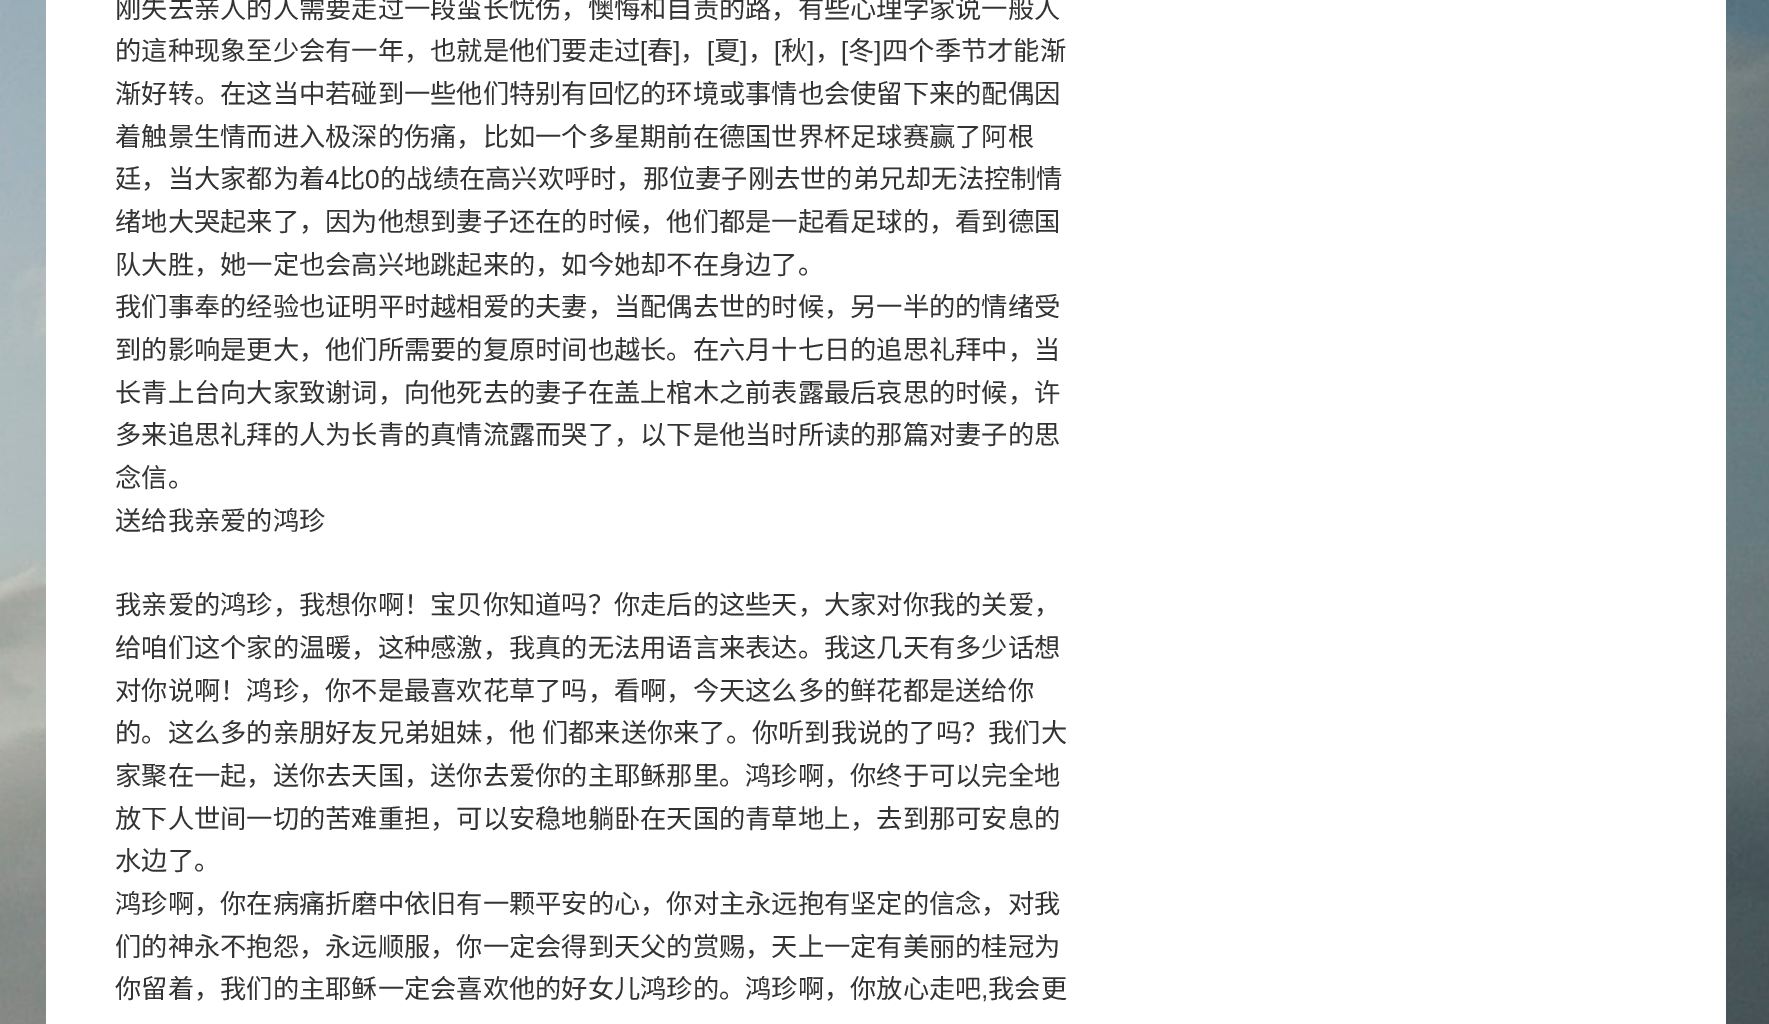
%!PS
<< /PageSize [1769 1024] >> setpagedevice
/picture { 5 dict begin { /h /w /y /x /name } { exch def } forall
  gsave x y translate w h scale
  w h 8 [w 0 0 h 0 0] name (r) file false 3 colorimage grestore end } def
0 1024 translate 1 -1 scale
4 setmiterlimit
1 setgray
0 0 1769 1024 rectfill
(img1.rgb) 0 0 1769 1024 picture
46 0 1680 1024 rectfill
/NotoSansCJKSC-Regular [26.25 0 0 -26.25 0 0] selectfont
0.2 setgray
115 18 moveto (刚失去亲人的人需要走过一段蛮长忧伤，懊悔和自责的路，有些心理学家说一般人) show
115 60 moveto (的這种现象至少会有一年，也就是他们要走过) show
/LiberationSans-Regular [26.25 0 0 -26.25 0 0] selectfont
640 60 moveto ([) show
/NotoSansCJKSC-Regular [26.25 0 0 -26.25 0 0] selectfont
647 60 moveto (春) show
/LiberationSans-Regular [26.25 0 0 -26.25 0 0] selectfont
673 60 moveto (]) show
/NotoSansCJKSC-Regular [26.25 0 0 -26.25 0 0] selectfont
680 60 moveto (，) show
/LiberationSans-Regular [26.25 0 0 -26.25 0 0] selectfont
707 60 moveto ([) show
/NotoSansCJKSC-Regular [26.25 0 0 -26.25 0 0] selectfont
714 60 moveto (夏) show
/LiberationSans-Regular [26.25 0 0 -26.25 0 0] selectfont
740 60 moveto (]) show
/NotoSansCJKSC-Regular [26.25 0 0 -26.25 0 0] selectfont
748 60 moveto (，) show
/LiberationSans-Regular [26.25 0 0 -26.25 0 0] selectfont
774 60 moveto ([) show
/NotoSansCJKSC-Regular [26.25 0 0 -26.25 0 0] selectfont
781 60 moveto (秋) show
/LiberationSans-Regular [26.25 0 0 -26.25 0 0] selectfont
807 60 moveto (]) show
/NotoSansCJKSC-Regular [26.25 0 0 -26.25 0 0] selectfont
815 60 moveto (，) show
/LiberationSans-Regular [26.25 0 0 -26.25 0 0] selectfont
841 60 moveto ([) show
/NotoSansCJKSC-Regular [26.25 0 0 -26.25 0 0] selectfont
848 60 moveto (冬) show
/LiberationSans-Regular [26.25 0 0 -26.25 0 0] selectfont
874 60 moveto (]) show
/NotoSansCJKSC-Regular [26.25 0 0 -26.25 0 0] selectfont
882 60 moveto (四个季节才能渐) show
115 103 moveto (渐好转。在这当中若碰到一些他们特别有回忆的环境或事情也会使留下来的配偶因) show
115 146 moveto (着触景生情而进入极深的伤痛，比如一个多星期前在德国世界杯足球赛赢了阿根) show
115 188 moveto (廷，当大家都为着) show
/LiberationSans-Regular [26.25 0 0 -26.25 0 0] selectfont
325 188 moveto (4) show
/NotoSansCJKSC-Regular [26.25 0 0 -26.25 0 0] selectfont
339 188 moveto (比) show
/LiberationSans-Regular [26.25 0 0 -26.25 0 0] selectfont
365 188 moveto (0) show
/NotoSansCJKSC-Regular [26.25 0 0 -26.25 0 0] selectfont
380 188 moveto (的战绩在高兴欢呼时，那位妻子刚去世的弟兄却无法控制情) show
115 231 moveto (绪地大哭起来了，因为他想到妻子还在的时候，他们都是一起看足球的，看到德国) show
115 274 moveto (队大胜，她一定也会高兴地跳起来的，如今她却不在身边了。) show
115 316 moveto (我们事奉的经验也证明平时越相爱的夫妻，当配偶去世的时候，另一半的的情绪受) show
115 359 moveto (到的影响是更大，他们所需要的复原时间也越长。在六月十七日的追思礼拜中，当) show
115 402 moveto (长青上台向大家致谢词，向他死去的妻子在盖上棺木之前表露最后哀思的时候，许) show
115 444 moveto (多来追思礼拜的人为长青的真情流露而哭了，以下是他当时所读的那篇对妻子的思) show
115 487 moveto (念信。) show
115 530 moveto (送给我亲爱的鸿珍) show
115 614 moveto (我亲爱的鸿珍，我想你啊！宝贝你知道吗？你走后的这些天，大家对你我的关爱，) show
115 657 moveto (给咱们这个家的温暖，这种感激，我真的无法用语言来表达。我这几天有多少话想) show
115 700 moveto (对你说啊！鸿珍，你不是最喜欢花草了吗，看啊，今天这么多的鲜花都是送给你) show
115 742 moveto 1 0 32 (的。这么多的亲朋好友兄弟姐妹，他 们都来送你来了。你听到我说的了吗？我们大) widthshow
115 785 moveto (家聚在一起，送你去天国，送你去爱你的主耶稣那里。鸿珍啊，你终于可以完全地) show
115 828 moveto (放下人世间一切的苦难重担，可以安稳地躺卧在天国的青草地上，去到那可安息的) show
115 870 moveto (水边了。) show
115 913 moveto (鸿珍啊，你在病痛折磨中依旧有一颗平安的心，你对主永远抱有坚定的信念，对我) show
115 956 moveto (们的神永不抱怨，永远顺服，你一定会得到天父的赏赐，天上一定有美丽的桂冠为) show
115 998 moveto (你留着，我们的主耶稣一定会喜欢他的好女儿鸿珍的。鸿珍啊，你放心走吧) show
/LiberationSans-Regular [26.25 0 0 -26.25 0 0] selectfont
981 998 moveto (,) show
/NotoSansCJKSC-Regular [26.25 0 0 -26.25 0 0] selectfont
988 998 moveto (我会更) show
showpage
